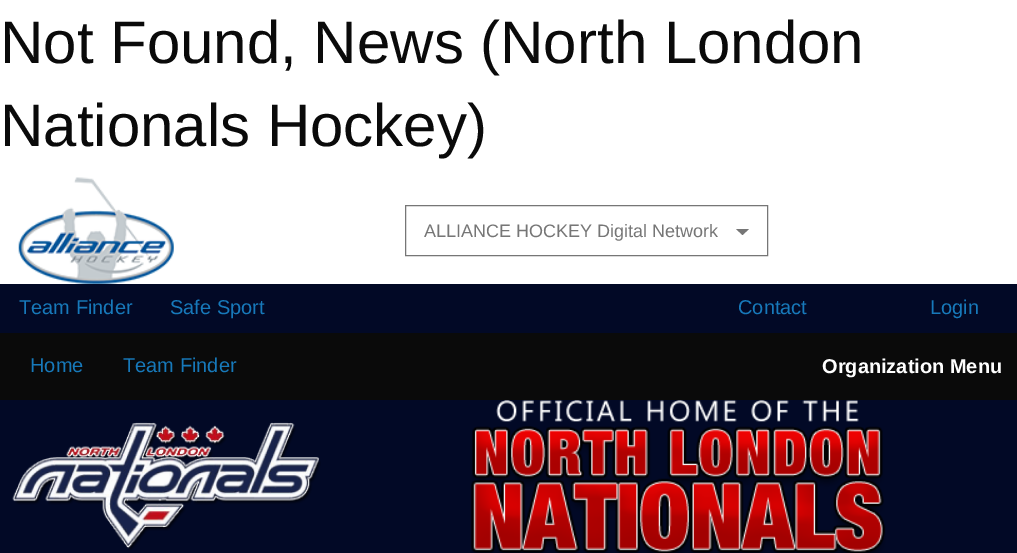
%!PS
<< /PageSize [1017 553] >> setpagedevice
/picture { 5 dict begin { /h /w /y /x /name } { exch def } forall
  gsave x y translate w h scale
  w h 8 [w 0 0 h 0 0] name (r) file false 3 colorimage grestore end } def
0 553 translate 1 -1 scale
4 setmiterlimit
1 setgray
0 0 1017 553 rectfill
/LiberationSans-Regular [60 0 0 -60 0 0] selectfont
0.039 setgray
0 63 moveto (Not Found, News \(North London) show
0 146 moveto (Nationals Hockey\)) show
(img1.rgb) 18 177 156 107 picture
0.463 setgray
405.5 205.5 362 50 rectstroke
/LiberationSans-Regular [18 0 0 -18 0 0] selectfont
424 237 moveto (ALLIANCE HOCKEY Digital Network) show
newpath 736 229 moveto 749 229 lineto 742.5 235 lineto closepath fill
0.008 0.035 0.149 setrgbcolor
0 284 1017 269 rectfill
/LiberationSans-Regular [20 0 0 -20 0 0] selectfont
0.09 0.475 0.729 setrgbcolor
19 314 moveto (Team Finder) show
170 314 moveto (Safe Sport) show
738 314 moveto (Contact) show
930 314 moveto (Login) show
0.039 setgray
0 333 1017 67 rectfill
0.09 0.475 0.729 setrgbcolor
30 372 moveto (Home) show
123 372 moveto (Team Finder) show
/LiberationSans-Bold [20 0 0 -20 0 0] selectfont
0.996 setgray
822 373 moveto (Organization Menu) show
(img2.rgb) 12 422 309 128 picture
(img3.rgb) 471 400 415 153 picture
showpage
